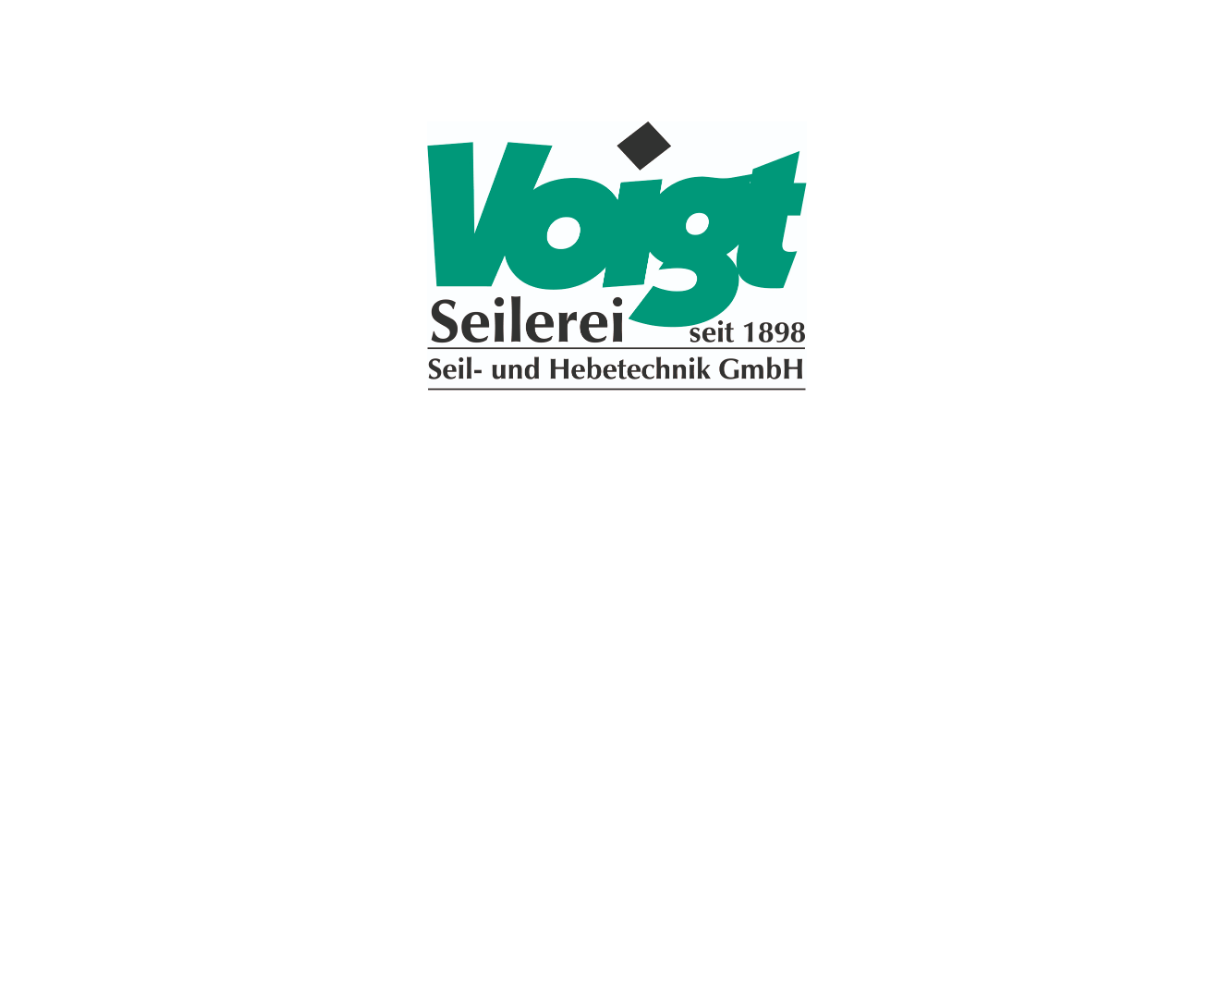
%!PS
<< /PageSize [1230 997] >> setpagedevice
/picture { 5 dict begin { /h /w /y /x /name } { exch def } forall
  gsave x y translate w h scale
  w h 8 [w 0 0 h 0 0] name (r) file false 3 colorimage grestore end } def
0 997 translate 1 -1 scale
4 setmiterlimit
1 setgray
0 0 1230 997 rectfill
(img1.rgb) 427 121 380 270 picture
showpage
